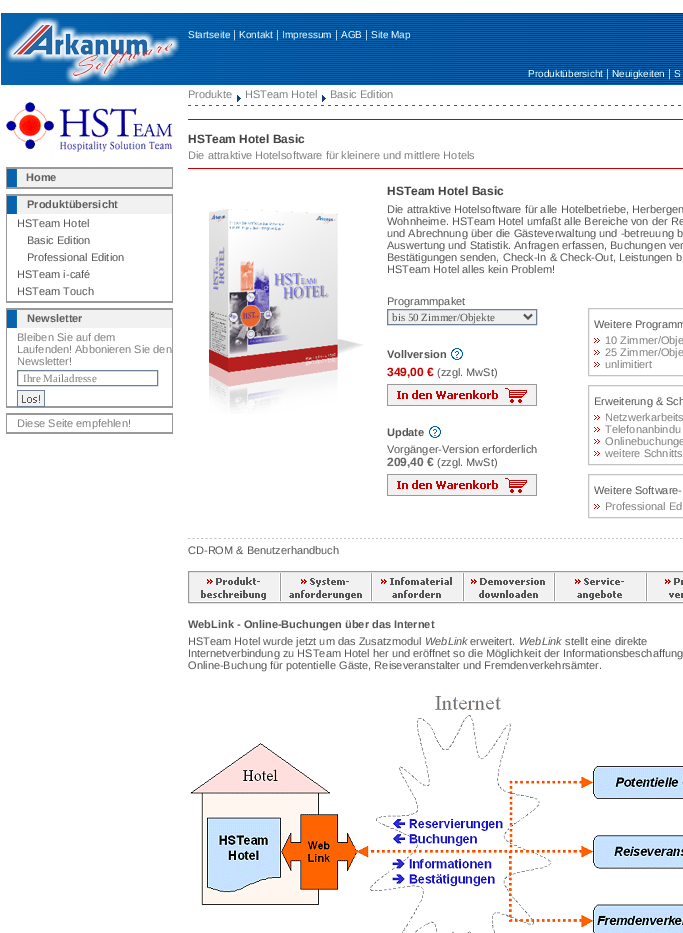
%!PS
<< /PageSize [683 933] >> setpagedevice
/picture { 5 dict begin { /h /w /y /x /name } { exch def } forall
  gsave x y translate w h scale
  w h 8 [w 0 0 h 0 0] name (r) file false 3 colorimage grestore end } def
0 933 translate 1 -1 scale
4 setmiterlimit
1 setgray
0 0 683 933 rectfill
(img1.rgb) 1 13 682 72 picture
(img2.rgb) 5 17 175 67 picture
/LiberationSans-Regular [10 0 0 -10 0 0] selectfont
188 38 moveto (Startseite) show
/LiberationSans-Regular [11 0 0 -11 0 0] selectfont
233 38 moveto (|) show
/LiberationSans-Regular [10 0 0 -10 0 0] selectfont
239 38 moveto (Kontakt) show
/LiberationSans-Regular [11 0 0 -11 0 0] selectfont
276 38 moveto (|) show
/LiberationSans-Regular [10 0 0 -10 0 0] selectfont
282 38 moveto (Impressum) show
/LiberationSans-Regular [11 0 0 -11 0 0] selectfont
335 38 moveto (|) show
/LiberationSans-Regular [10 0 0 -10 0 0] selectfont
341 38 moveto (AGB) show
/LiberationSans-Regular [11 0 0 -11 0 0] selectfont
365 38 moveto (|) show
/LiberationSans-Regular [10 0 0 -10 0 0] selectfont
371 38 moveto (Site Map) show
528 77 moveto (Produktübersicht) show
/LiberationSans-Regular [11 0 0 -11 0 0] selectfont
606 77 moveto (|) show
/LiberationSans-Regular [10 0 0 -10 0 0] selectfont
612 77 moveto (Neuigkeiten) show
/LiberationSans-Regular [11 0 0 -11 0 0] selectfont
668 77 moveto (|) show
/LiberationSans-Regular [10 0 0 -10 0 0] selectfont
674 77 moveto (S) show
(img3.rgb) 6 102 167 50 picture
0.6 setgray
6 167 167 2 rectfill
172 167 1 22 rectfill
6 187 167 2 rectfill
6 167 1 22 rectfill
(img4.rgb) 7 169 165 18 picture
/LiberationSans-Bold [11 0 0 -11 0 0] selectfont
0.373 setgray
26 181 moveto (Home) show
0.6 setgray
6 194 167 2 rectfill
172 194 1 109 rectfill
6 301 167 2 rectfill
6 194 1 109 rectfill
(img4.rgb) 7 196 165 18 picture
0.373 setgray
27 208 moveto (Produktübersicht) show
/LiberationSans-Regular [11 0 0 -11 0 0] selectfont
0.333 setgray
17 227 moveto (HSTeam Hotel) show
27 244 moveto (Basic Edition) show
27 261 moveto (Professional Edition) show
17 278 moveto (HSTeam i-café) show
17 295 moveto (HSTeam Touch) show
0.6 setgray
6 308 167 2 rectfill
172 308 1 100 rectfill
6 406 167 2 rectfill
6 308 1 100 rectfill
(img4.rgb) 7 310 165 18 picture
/LiberationSans-Bold [11 0 0 -11 0 0] selectfont
0.373 setgray
27 322 moveto (Newsletter) show
/LiberationSans-Regular [11 0 0 -11 0 0] selectfont
0.502 setgray
17 341 moveto (Bleiben Sie auf dem) show
17 353 moveto (Laufenden! Abbonieren Sie den) show
17 365 moveto (Newsletter!) show
0.431 0.502 0.584 setrgbcolor
17.5 370.5 140 15 rectstroke
/LiberationSerif-Regular [11 0 0 -11 0 0] selectfont
0.502 setgray
23 382 moveto (Ihre Mailadresse) show
(img5.rgb) 17 390 28 17 picture
0.6 setgray
6 413 167 2 rectfill
172 413 1 21 rectfill
6 432 167 2 rectfill
6 413 1 21 rectfill
/LiberationSans-Regular [11 0 0 -11 0 0] selectfont
0.502 setgray
17 427 moveto (Diese Seite empfehlen!) show
188 98 moveto (Produkte) show
(img6.rgb) 237 95 4 7 picture
245 98 moveto (HSTeam Hotel) show
(img6.rgb) 322 95 4 7 picture
330 98 moveto (Basic Edition) show
(img7.rgb) 188 105 493 1 picture
0.8 0 0 setrgbcolor
188 119 495 1 rectfill
/LiberationSans-Bold [12 0 0 -12 0 0] selectfont
0.267 setgray
188 143 moveto (HSTeam Hotel Basic) show
/LiberationSans-Regular [11 0 0 -11 0 0] selectfont
0.502 setgray
188 159 moveto (Die attraktive Hotelsoftware für kleinere und mittlere Hotels) show
0.8 0 0 setrgbcolor
188 168 495 1 rectfill
(img8.rgb) 209 209 155 205 picture
/LiberationSans-Bold [12 0 0 -12 0 0] selectfont
0.267 setgray
387 195 moveto (HSTeam Hotel Basic) show
/LiberationSans-Regular [11 0 0 -11 0 0] selectfont
0.333 setgray
387 213 moveto (Die attraktive Hotelsoftware für alle Hotelbetriebe, Herbergen) show
387 225 moveto (Wohnheime. HSTeam Hotel umfaßt alle Bereiche von der Re) show
387 237 moveto (und Abrechnung über die Gästeverwaltung und -betreuung b) show
387 249 moveto (Auswertung und Statistik. Anfragen erfassen, Buchungen ver) show
387 261 moveto (Bestätigungen senden, Check-In & Check-Out, Leistungen b) show
387 273 moveto (HSTeam Hotel alles kein Problem!) show
387 305 moveto (Programmpaket) show
0.937 setgray
newpath 387.5 309.5 moveto 536.5 309.5 lineto 536.5 324.5 lineto 387.5 324.5 lineto closepath gsave fill grestore
0.431 0.502 0.584 setrgbcolor
stroke
0.333 setgray
2 setlinewidth
newpath 524 314.5 moveto 528 318.5 lineto 532 314.5 lineto stroke
/LiberationSerif-Regular [11 0 0 -11 0 0] selectfont
392 321 moveto (bis 50 Zimmer/Objekte) show
/LiberationSans-Bold [11 0 0 -11 0 0] selectfont
387 358 moveto (Vollversion) show
(img9.rgb) 451 348 12 12 picture
/LiberationSans-Bold [12 0 0 -12 0 0] selectfont
0.8 0 0 setrgbcolor
387 376 moveto (349,00 €) show
/LiberationSans-Regular [11 0 0 -11 0 0] selectfont
0.333 setgray
437 376 moveto (\(zzgl. MwSt\)) show
(img10.rgb) 387 384 150 22 picture
/LiberationSans-Bold [11 0 0 -11 0 0] selectfont
387 436 moveto (Update) show
(img9.rgb) 429 426 12 12 picture
/LiberationSans-Regular [11 0 0 -11 0 0] selectfont
387 453 moveto (Vorgänger-Version erforderlich) show
/LiberationSans-Bold [12 0 0 -12 0 0] selectfont
0.4 setgray
387 466 moveto (209,40 €) show
/LiberationSans-Regular [11 0 0 -11 0 0] selectfont
0.333 setgray
437 466 moveto (\(zzgl. MwSt\)) show
(img10.rgb) 387 474 150 22 picture
0.765 setgray
1 setlinewidth
588.5 308.5 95 67 rectstroke
0.333 setgray
594 328 moveto (Weitere Programm) show
(img11.rgb) 594 338 6 5 picture
0.502 setgray
605 344 moveto (10 Zimmer/Obje) show
(img11.rgb) 594 350 6 5 picture
605 356 moveto (25 Zimmer/Obje) show
(img11.rgb) 594 362 6 5 picture
605 368 moveto (unlimitiert) show
0.765 setgray
588.5 385.5 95 79 rectstroke
0.333 setgray
594 405 moveto (Erweiterung & Sch) show
(img11.rgb) 594 415 6 5 picture
0.502 setgray
605 421 moveto (Netzwerkarbeits) show
(img11.rgb) 594 427 6 5 picture
605 433 moveto (Telefonanbindu) show
(img11.rgb) 594 439 6 5 picture
605 445 moveto (Onlinebuchunge) show
(img11.rgb) 594 451 6 5 picture
605 457 moveto (weitere Schnitts) show
0.765 setgray
588.5 474.5 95 43 rectstroke
0.333 setgray
594 494 moveto (Weitere Software-) show
(img11.rgb) 594 504 6 5 picture
0.502 setgray
605 510 moveto (Professional Ed) show
(img12.rgb) 188 538 494 1 picture
(img13.rgb) 190 538 32 1 picture
0.333 setgray
188 554 moveto (CD-ROM & Benutzerhandbuch) show
0.6 setgray
188.5 571.5 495 31 rectstroke
0.945 setgray
190 573 89 28 rectfill
(img14.rgb) 201 577 65 23 picture
0.6 setgray
280 573 1 28 rectfill
0.945 setgray
282 573 88 28 rectfill
(img15.rgb) 289 578 73 22 picture
0.6 setgray
371 573 1 28 rectfill
0.945 setgray
373 573 89 28 rectfill
(img16.rgb) 381 577 71 21 picture
0.6 setgray
463 573 1 28 rectfill
0.945 setgray
465 573 88 28 rectfill
(img17.rgb) 471 578 74 20 picture
0.6 setgray
554 573 1 28 rectfill
0.945 setgray
556 573 89 28 rectfill
(img18.rgb) 575 578 49 22 picture
0.6 setgray
646 573 1 28 rectfill
0.945 setgray
648 573 35 28 rectfill
(img19.rgb) 665 578 18 20 picture
/LiberationSans-Bold [11 0 0 -11 0 0] selectfont
0.333 setgray
188 628 moveto (WebLink - Online-Buchungen über das Internet) show
/LiberationSans-Regular [11 0 0 -11 0 0] selectfont
188 645 moveto (HSTeam Hotel wurde jetzt um das Zusatzmodul) show
/LiberationSans-Italic [11 0 0 -11 0 0] selectfont
425 645 moveto (WebLink) show
/LiberationSans-Regular [11 0 0 -11 0 0] selectfont
470 645 moveto (erweitert.) show
/LiberationSans-Italic [11 0 0 -11 0 0] selectfont
519 645 moveto (WebLink) show
/LiberationSans-Regular [11 0 0 -11 0 0] selectfont
565 645 moveto (stellt eine direkte) show
188 657 moveto (Internetverbindung zu HSTeam Hotel her und eröffnet so die Möglichkeit der Informationsbeschaffung) show
188 669 moveto (Online-Buchung für potentielle Gäste, Reiseveranstalter und Fremdenverkehrsämter.) show
(img20.rgb) 190 695 493 238 picture
showpage
